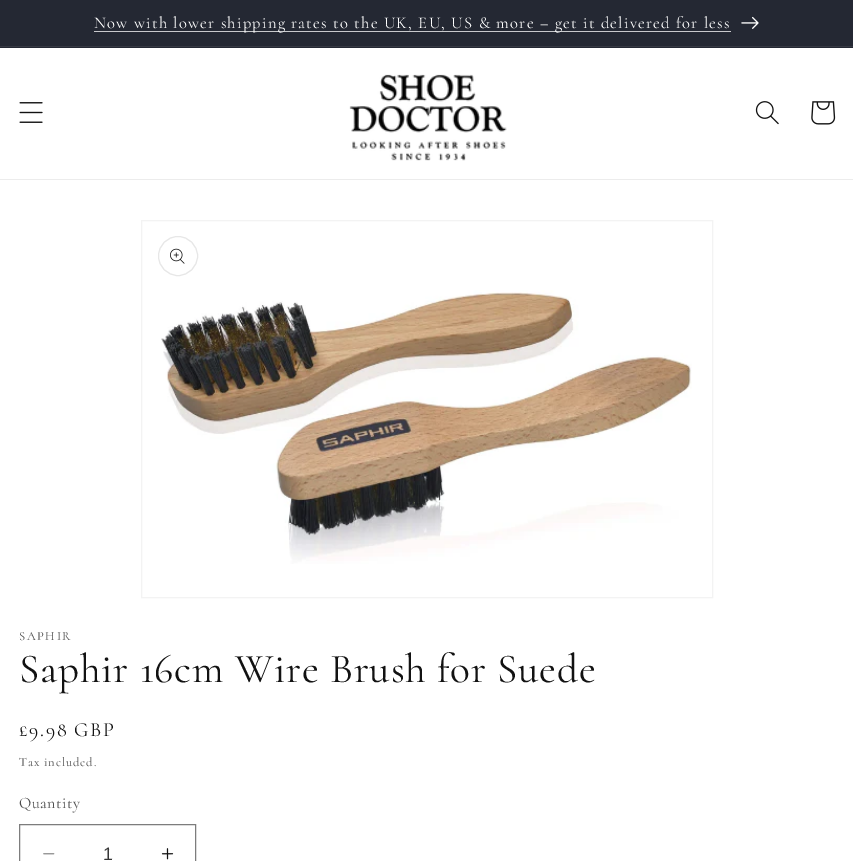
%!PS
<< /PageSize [853 861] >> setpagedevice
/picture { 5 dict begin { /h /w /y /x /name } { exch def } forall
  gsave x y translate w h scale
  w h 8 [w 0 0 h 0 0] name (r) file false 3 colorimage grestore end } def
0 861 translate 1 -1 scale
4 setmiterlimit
1 setgray
0 0 853 861 rectfill
0.141 0.157 0.2 setrgbcolor
0 0 853 48 rectfill
0.212 0.224 0.263 setrgbcolor
0 46 853 1 rectfill
0.784 0.788 0.8 setrgbcolor
94 31 637 1 rectfill
/Cormorant-Regular [16.5 0 0 -16.5 0 0] selectfont
1 setgray
94 28 moveto 1.25 0 (Now with lower shipping rates to the UK, EU, US & more – get it delivered for less) ashow
(img1.rgb) 741 16 18 13 picture
0.925 setgray
0 179 853 1 rectfill
(img2.rgb) 19 102 24 21 picture
(img3.rgb) 349 74 158 87 picture
(img4.rgb) 755 101 24 24 picture
(img5.rgb) 811 101 25 24 picture
0.953 setgray
141.5 220.5 571 377 rectstroke
0.906 setgray
newpath 178 256 19.5 0 360 arc closepath stroke
(img6.rgb) 170 248 15 16 picture
(img7.rgb) 161 290 531 274 picture
/Cormorant-Regular [12.5 0 0 -12.5 0 0] selectfont
0.302 setgray
19 640 moveto 1.6 0 (SAPHIR) ashow
/Cormorant-Regular [41.25 0 0 -41.25 0 0] selectfont
0.071 setgray
19 682 moveto 0.8 0 (Saphir 16cm Wire Brush for Suede) ashow
/Cormorant-Regular [20 0 0 -20 0 0] selectfont
19 736 moveto 1.6 0 (£9.98 GBP) ashow
/Cormorant-Regular [12.5 0 0 -12.5 0 0] selectfont
0.302 setgray
19 766 moveto 0.9 0 (Tax included.) ashow
/Cormorant-Regular [16 0 0 -16 0 0] selectfont
19 808 moveto 0.5 0 (Quantity) ashow
(img8.rgb) 43 853 12 2 picture
(img9.rgb) 161 848 13 12 picture
0.49 setgray
19.5 824.5 176 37 rectstroke
/LiberationSans-Regular [18 0 0 -18 0 0] selectfont
0.212 setgray
103 860 moveto (1) show
showpage
